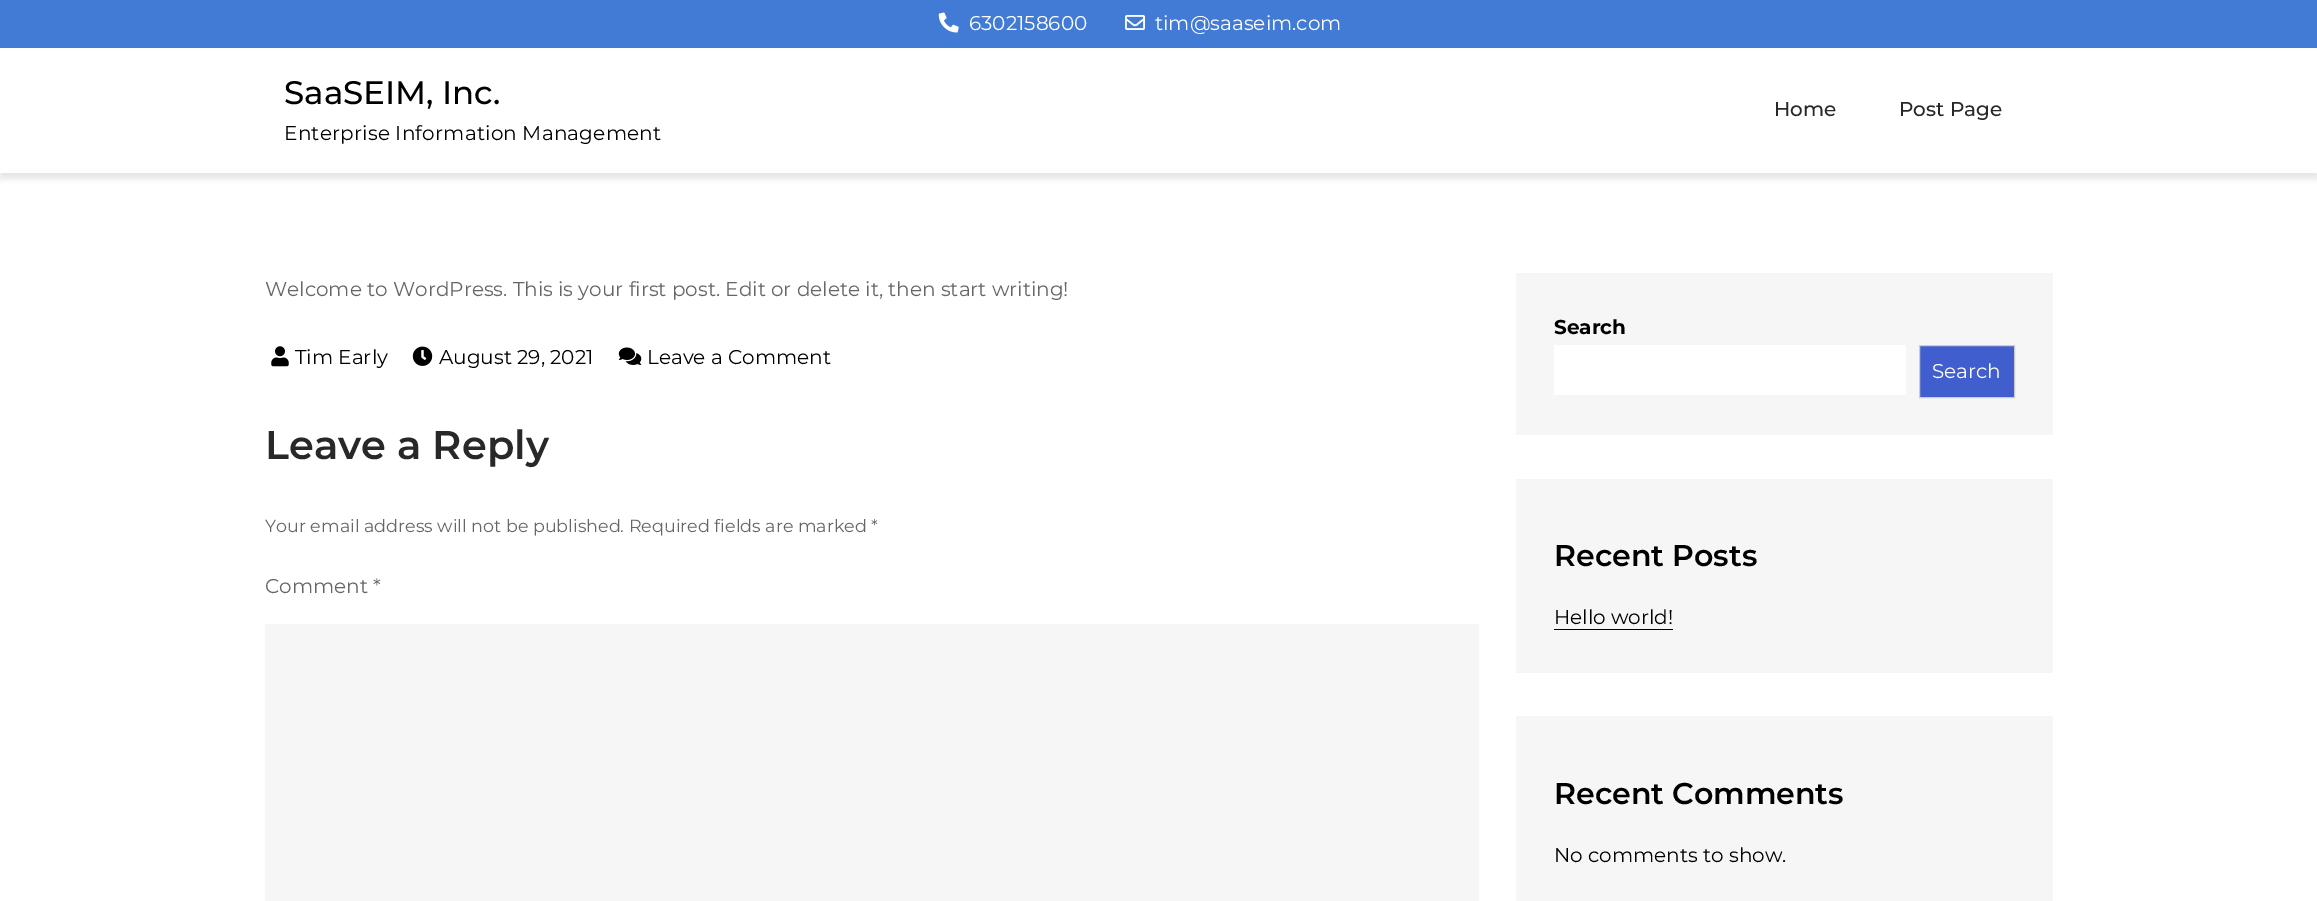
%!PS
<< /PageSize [2317 901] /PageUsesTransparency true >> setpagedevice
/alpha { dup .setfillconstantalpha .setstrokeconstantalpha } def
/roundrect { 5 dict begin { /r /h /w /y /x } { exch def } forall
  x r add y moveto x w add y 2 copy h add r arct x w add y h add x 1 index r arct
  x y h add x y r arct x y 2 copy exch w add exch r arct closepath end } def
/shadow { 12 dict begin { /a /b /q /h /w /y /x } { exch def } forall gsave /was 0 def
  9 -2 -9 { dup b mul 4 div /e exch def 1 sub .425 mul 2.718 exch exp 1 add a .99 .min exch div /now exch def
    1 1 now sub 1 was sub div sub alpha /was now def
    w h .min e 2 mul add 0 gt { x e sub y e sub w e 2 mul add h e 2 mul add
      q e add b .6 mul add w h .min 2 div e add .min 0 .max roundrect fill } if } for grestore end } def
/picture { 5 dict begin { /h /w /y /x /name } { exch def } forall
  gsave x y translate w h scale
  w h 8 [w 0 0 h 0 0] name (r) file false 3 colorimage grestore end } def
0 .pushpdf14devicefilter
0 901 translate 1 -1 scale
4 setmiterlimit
1 setgray
0 0 2317 901 rectfill
0.259 0.482 0.839 setrgbcolor
0 0 2317 48 rectfill
(img1.rgb) 938 12 21 21 picture
/Montserrat-Regular [20 0 0 -20 0 0] selectfont
1 setgray
969 30 moveto (6302158600) show
(img2.rgb) 1125 15 20 15 picture
1155 30 moveto (tim@saaseim.com) show
0 setgray
0 54 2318 125 0 3 0.1 shadow
1 setgray
0 50 2317 123 rectfill
/Montserrat-Medium [32.5 0 0 -32.5 0 0] selectfont
0 setgray
284 104 moveto (SaaSEIM, Inc.) show
/Montserrat-Regular [20 0 0 -20 0 0] selectfont
284 140 moveto 0.2 0 (Enterprise Information Management) ashow
/Montserrat-Medium [20 0 0 -20 0 0] selectfont
0.157 setgray
1774 116 moveto (Home) show
1899 116 moveto (Post Page) show
/Montserrat-Regular [20 0 0 -20 0 0] selectfont
0.4 setgray
265 296 moveto (Welcome to WordPress. This is your first post. Edit or delete it, then start writing!) show
(img3.rgb) 271 346 18 21 picture
0 setgray
295 364 moveto (Tim Early) show
(img4.rgb) 412 346 21 20 picture
439 364 moveto (August 29, 2021) show
(img5.rgb) 618 347 24 18 picture
647 364 moveto (Leave a Comment) show
/Montserrat-SemiBold [40 0 0 -40 0 0] selectfont
0.157 setgray
265 459 moveto (Leave a Reply) show
/Montserrat-Regular [17.5 0 0 -17.5 0 0] selectfont
0.4 setgray
265 532 moveto (Your email address will not be published. Required fields are marked *) show
/Montserrat-Regular [20 0 0 -20 0 0] selectfont
265 593 moveto (Comment *) show
0.965 setgray
265 624 1214 277 rectfill
1516 273 537 162 rectfill
/Montserrat-Bold [20 0 0 -20 0 0] selectfont
0 setgray
1554 334 moveto (Search) show
1 setgray
1554 345 352 50 rectfill
0.251 0.369 0.808 setrgbcolor
newpath 1919.5 345.5 moveto 2014.5 345.5 lineto 2014.5 397.5 lineto 1919.5 397.5 lineto closepath gsave fill grestore
0.8 setgray
stroke
/Montserrat-Regular [20 0 0 -20 0 0] selectfont
1 setgray
1932 378 moveto (Search) show
0.965 setgray
1516 479 537 194 rectfill
/Montserrat-SemiBold [30 0 0 -30 0 0] selectfont
0 setgray
1554 566 moveto (Recent Posts) show
/Montserrat-Regular [20 0 0 -20 0 0] selectfont
1554 624 moveto (Hello world!) show
1554 629 119 1 rectfill
0.965 setgray
1516 716 537 185 rectfill
/Montserrat-SemiBold [30 0 0 -30 0 0] selectfont
0 setgray
1554 804 moveto (Recent Comments) show
/Montserrat-Regular [20 0 0 -20 0 0] selectfont
1554 862 moveto (No comments to show.) show
.poppdf14devicefilter showpage
